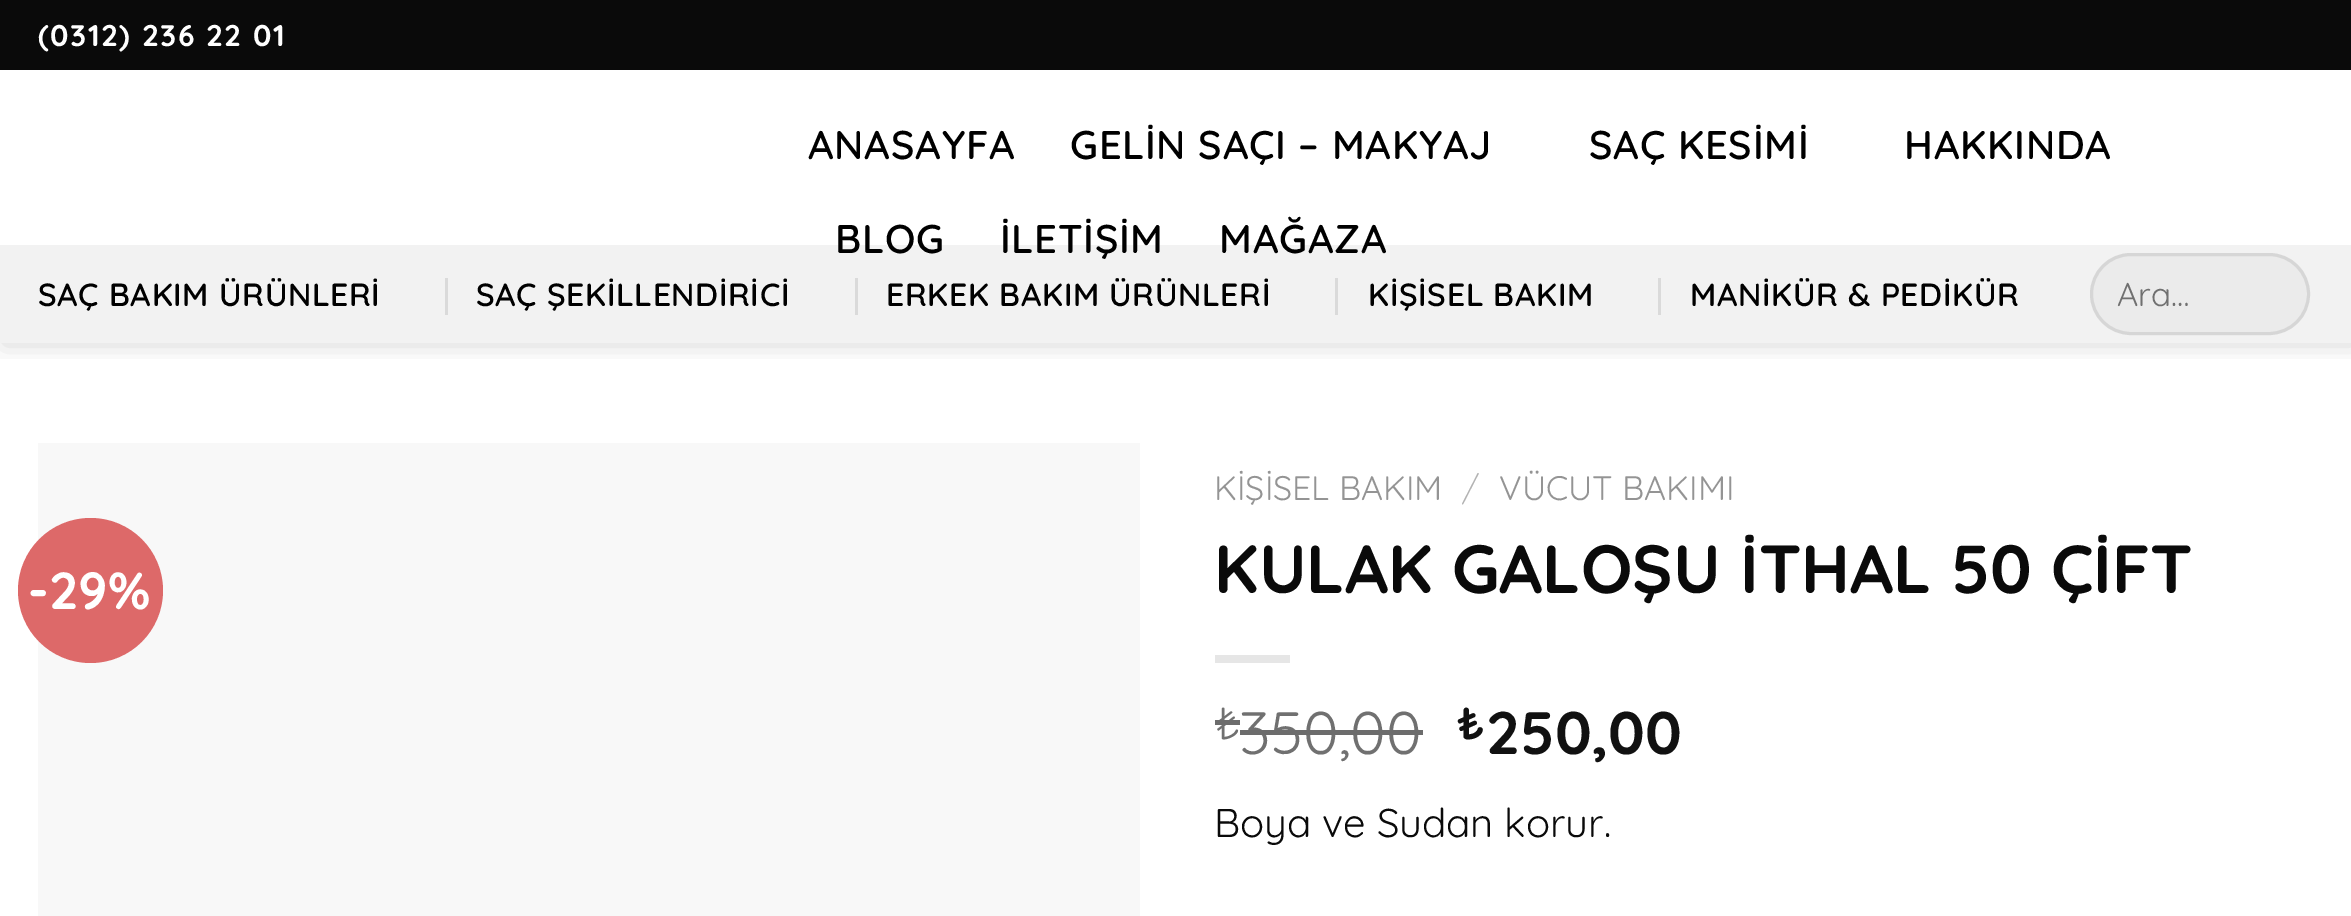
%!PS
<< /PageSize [2351 916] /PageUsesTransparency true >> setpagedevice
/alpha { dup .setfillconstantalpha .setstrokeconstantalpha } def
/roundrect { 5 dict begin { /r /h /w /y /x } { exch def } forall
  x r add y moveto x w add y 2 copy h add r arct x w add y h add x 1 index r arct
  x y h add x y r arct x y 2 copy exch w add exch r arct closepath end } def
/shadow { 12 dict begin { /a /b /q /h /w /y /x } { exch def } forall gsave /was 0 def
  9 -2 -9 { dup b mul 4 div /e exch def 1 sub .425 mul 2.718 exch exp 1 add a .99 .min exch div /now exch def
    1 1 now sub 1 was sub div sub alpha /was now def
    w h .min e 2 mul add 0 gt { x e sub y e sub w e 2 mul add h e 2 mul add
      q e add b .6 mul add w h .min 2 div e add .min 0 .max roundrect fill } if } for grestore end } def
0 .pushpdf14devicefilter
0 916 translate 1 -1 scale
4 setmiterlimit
1 setgray
0 0 2351 916 rectfill
gsave
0 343 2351 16 rectclip
0 setgray
3 3 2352 342 0 12.5 0.15 shadow
grestore
0.039 setgray
0 0 2351 70 rectfill
/Quicksand-Bold [30 0 0 -30 0 0] selectfont
1 setgray
38 46 moveto 1.5 0 (\(0312\) 236 22 01) ashow
/Quicksand-SemiBold [40 0 0 -40 0 0] selectfont
0 setgray
808 159 moveto 0.75 0 (ANASAYFA) ashow
1070 159 moveto 0.75 0 (GELİN SAÇI – MAKYAJ) ashow
1589 159 moveto 0.75 0 (SAÇ KESİMİ) ashow
1904 159 moveto 0.75 0 (HAKKINDA) ashow
0.949 setgray
0 245 2351 98 rectfill
0 setgray
835 253 moveto 0.75 0 (BLOG) ashow
1000 253 moveto 0.75 0 (İLETİŞİM) ashow
1219 253 moveto 0.75 0 (MAĞAZA) ashow
/Quicksand-SemiBold [32 0 0 -32 0 0] selectfont
38 306 moveto 0.6 0 (SAÇ BAKIM ÜRÜNLERİ) ashow
0.855 setgray
445 278 3 37 rectfill
0 setgray
476 306 moveto 0.6 0 (SAÇ ŞEKİLLENDİRİCİ) ashow
0.855 setgray
855 278 3 37 rectfill
0 setgray
886 306 moveto 0.6 0 (ERKEK BAKIM ÜRÜNLERİ) ashow
0.855 setgray
1335 278 3 37 rectfill
0 setgray
1368 306 moveto 0.6 0 (KİŞİSEL BAKIM) ashow
0.855 setgray
1658 278 3 37 rectfill
0 setgray
1690 306 moveto 0.6 0 (MANİKÜR & PEDİKÜR) ashow
0.922 setgray
2090 253 220 82 41 roundrect fill
0.09 alpha
0 setgray
3 setlinewidth
2091.5 254.5 217 79 39.5 roundrect stroke
/Quicksand-Regular [33 0 0 -33 0 0] selectfont
1 alpha
0.439 setgray
2117 306 moveto (Ara…) show
0.973 setgray
38 443 1102 473 rectfill
0.867 0.412 0.412 setrgbcolor
newpath 90.5 590.5 72.5 0 360 arc closepath fill
/Quicksand-Bold [52 0 0 -52 0 0] selectfont
1 setgray
28 609 moveto (-29%) show
/Quicksand-Regular [34 0 0 -34 0 0] selectfont
0.58 setgray
1214 500 moveto (KİŞİSEL BAKIM) show
/Quicksand-Light [34 0 0 -34 0 0] selectfont
0.698 setgray
1462 500 moveto (/) show
/Quicksand-Regular [34 0 0 -34 0 0] selectfont
0.58 setgray
1499 500 moveto (VÜCUT BAKIMI) show
/Quicksand-Bold [68 0 0 -68 0 0] selectfont
0.039 setgray
1214 593 moveto (KULAK GALOŞU İTHAL 50 ÇİFT) show
0.902 setgray
1215 655 75 8 rectfill
/Quicksand-Regular [45 0 0 -45 0 0] selectfont
0.439 setgray
1214 739 moveto (₺) show
0.424 setgray
1215 720 25 5 rectfill
/Quicksand-Regular [60 0 0 -60 0 0] selectfont
0.439 setgray
1239 754 moveto (350,00) show
0.424 setgray
1240 730 183 5 rectfill
/Quicksand-Bold [45 0 0 -45 0 0] selectfont
0.067 setgray
1457 739 moveto (₺) show
/Quicksand-Bold [60 0 0 -60 0 0] selectfont
1486 754 moveto (250,00) show
/Quicksand-Regular [40 0 0 -40 0 0] selectfont
0.039 setgray
1214 837 moveto (Boya ve Sudan korur.) show
.poppdf14devicefilter showpage
